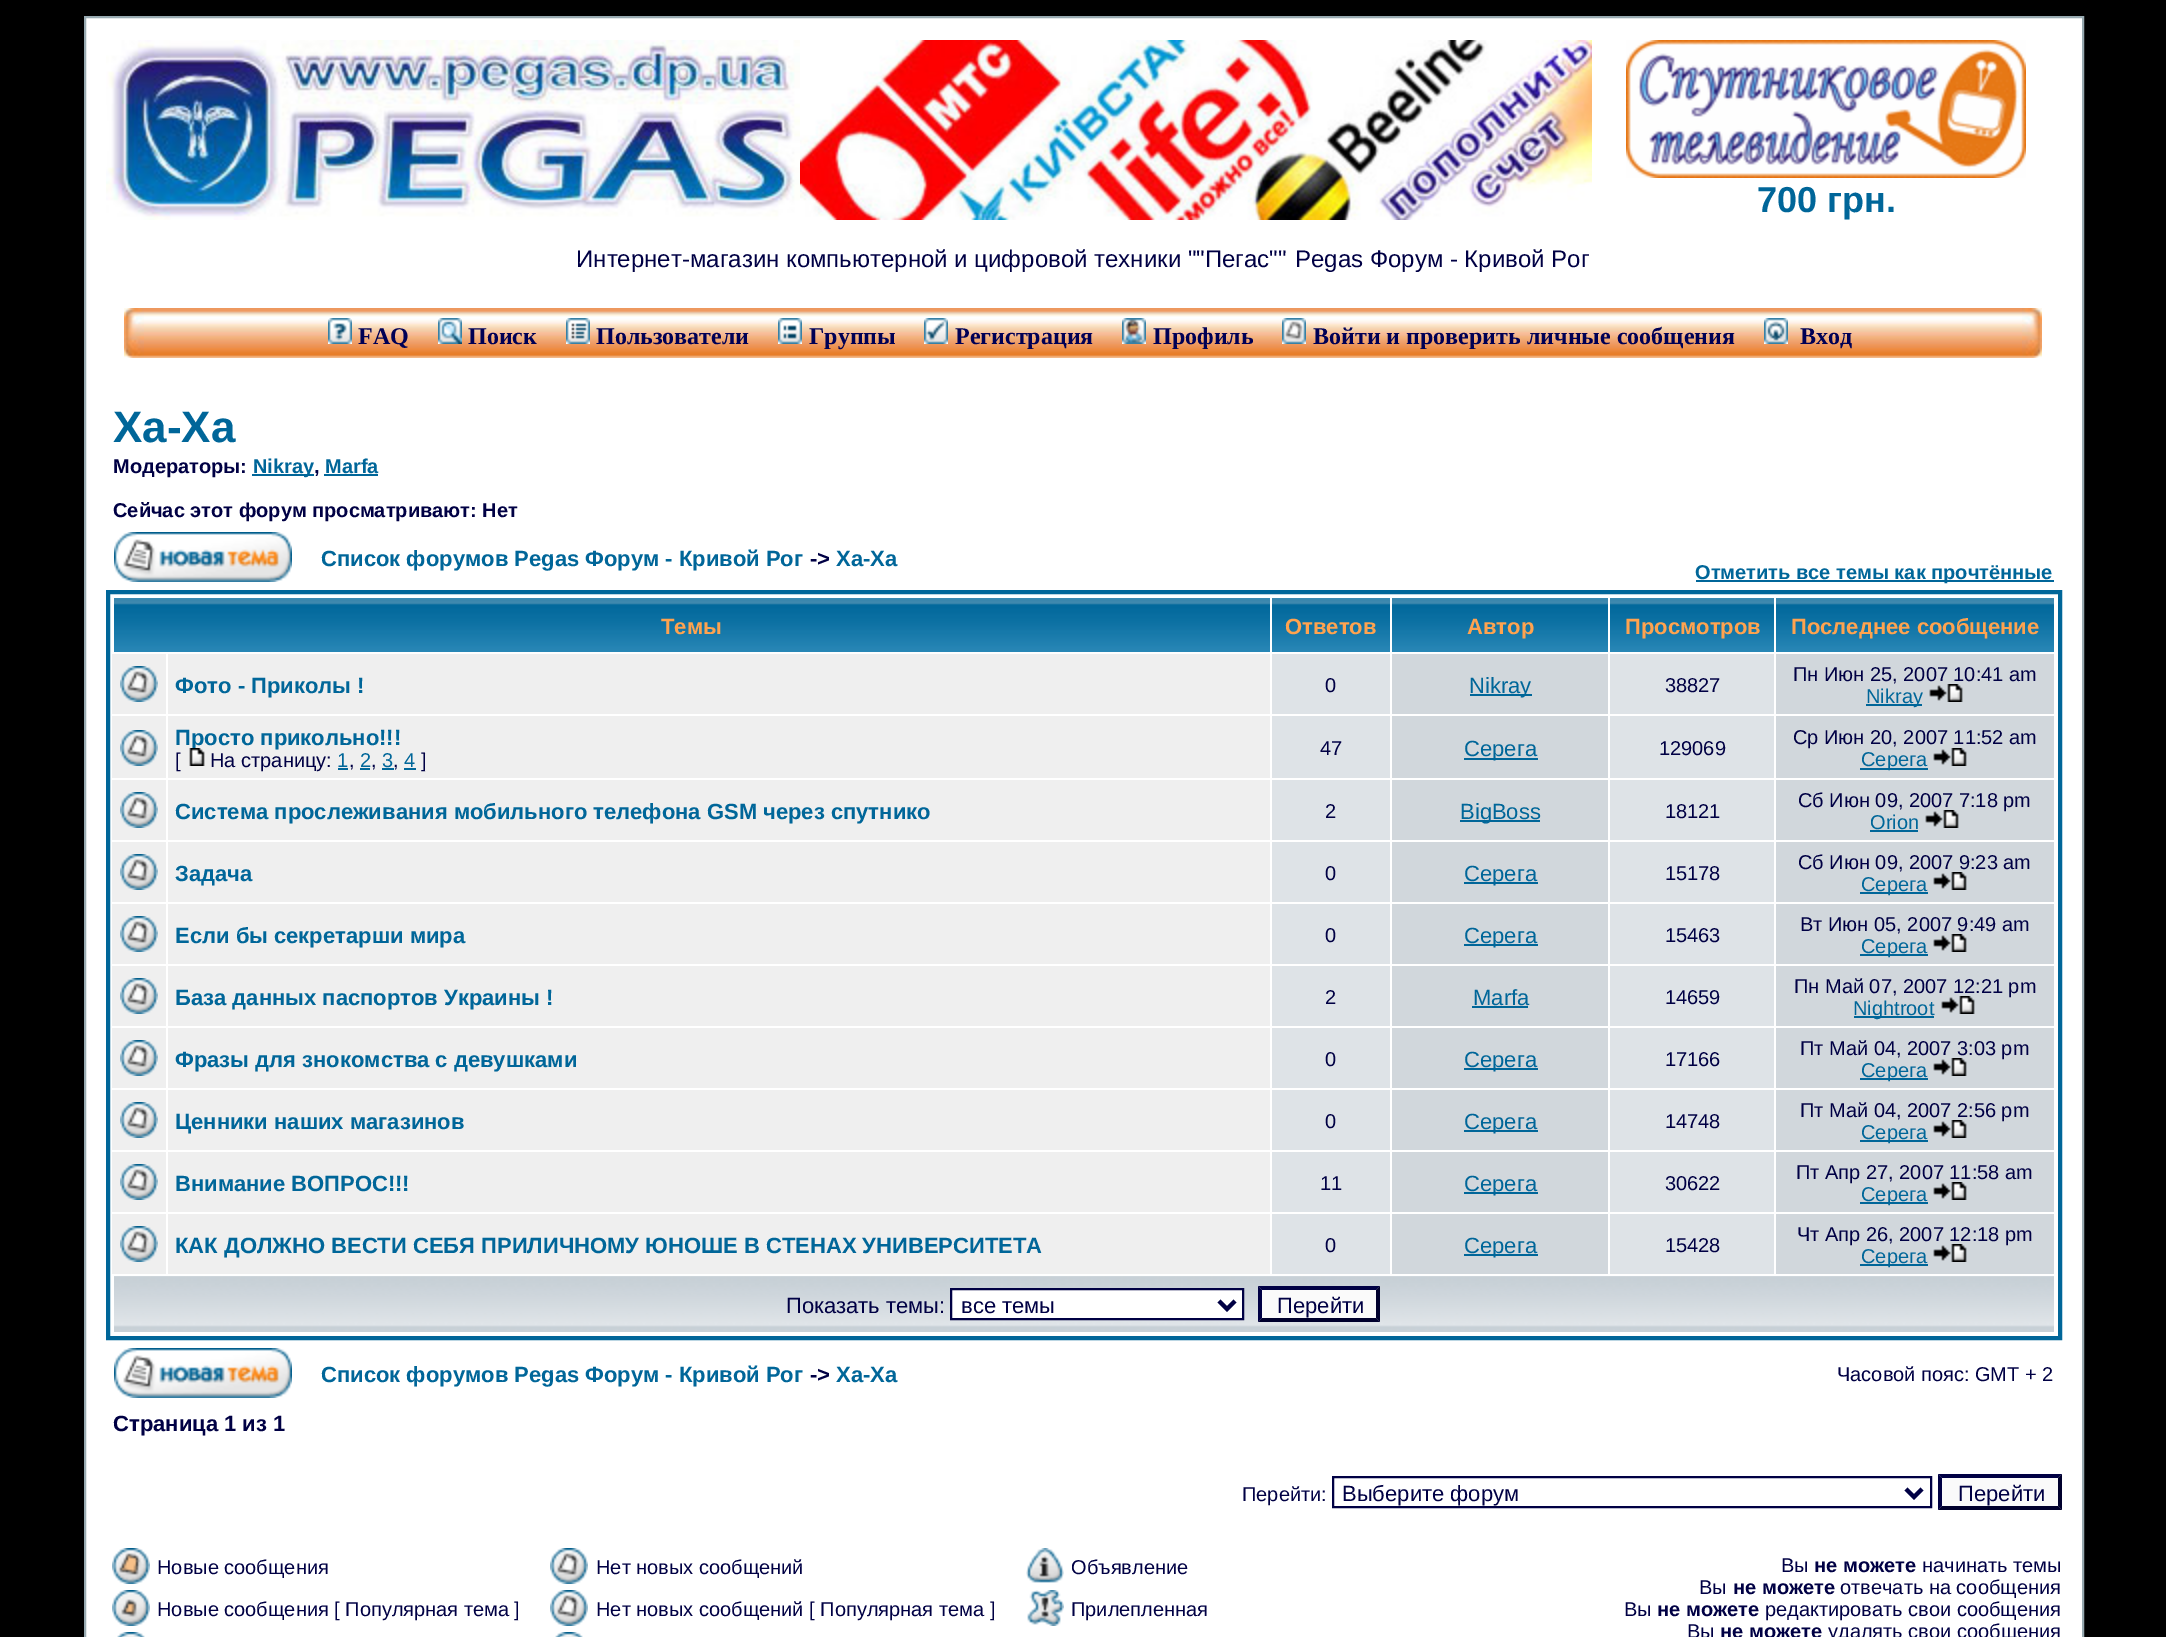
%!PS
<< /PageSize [2166 1637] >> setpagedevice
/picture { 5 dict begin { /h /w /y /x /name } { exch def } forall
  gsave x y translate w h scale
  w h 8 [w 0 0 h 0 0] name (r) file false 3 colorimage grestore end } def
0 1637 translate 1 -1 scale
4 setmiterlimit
0 setgray
0 0 2166 1637 rectfill
1 setgray
newpath 85 17 moveto 2083 17 lineto 2083 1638 lineto 85 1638 lineto closepath gsave fill grestore
0.596 0.667 0.694 setrgbcolor
2 setlinewidth
stroke
(img1.rgb) 106 40 694 180 picture
(img2.rgb) 800 40 792 180 picture
(img3.rgb) 1626 40 400 138 picture
/LiberationSans-Bold [36 0 0 -36 0 0] selectfont
0 0.4 0.6 setrgbcolor
1757 212 moveto (700 грн.) show
/LiberationSans-Regular [24 0 0 -24 0 0] selectfont
0 0 0.267 setrgbcolor
576 267 moveto (Интернет-магазин компьютерной и цифровой техники ""Пегас"") show
1295 267 moveto (Pegas Форум - Кривой Рог) show
(img4.rgb) 124 308 20 50 picture
(img5.rgb) 144 308 1878 50 picture
(img6.rgb) 328 318 24 26 picture
/LiberationSerif-Bold [24 0 0 -24 0 0] selectfont
0 0 0.333 setrgbcolor
358 344 moveto (FAQ) show
(img7.rgb) 438 318 24 26 picture
468 344 moveto (Поиск) show
(img8.rgb) 566 318 24 26 picture
596 344 moveto (Пользователи) show
(img9.rgb) 778 318 24 26 picture
809 344 moveto (Группы) show
(img10.rgb) 924 318 24 26 picture
955 344 moveto (Регистрация) show
(img11.rgb) 1122 318 24 26 picture
1153 344 moveto (Профиль) show
(img12.rgb) 1282 318 24 26 picture
1313 344 moveto (Войти и проверить личные сообщения) show
(img13.rgb) 1764 318 24 26 picture
1800 344 moveto (Вход) show
(img14.rgb) 2022 308 20 50 picture
/LiberationSans-Bold [44 0 0 -44 0 0] selectfont
0 0.4 0.6 setrgbcolor
113 442 moveto (Ха-Ха) show
/LiberationSans-Bold [20 0 0 -20 0 0] selectfont
0 0 0.267 setrgbcolor
113 473 moveto (Модераторы:) show
0 0.4 0.6 setrgbcolor
252 474 62 2 rectfill
253 473 moveto (Nikray) show
0 0 0.267 setrgbcolor
314 473 moveto (,) show
0 0.4 0.6 setrgbcolor
324 474 54 2 rectfill
325 473 moveto (Marfa) show
0 0 0.267 setrgbcolor
113 517 moveto (Сейчас этот форум просматривают: Нет) show
(img15.rgb) 114 532 178 50 picture
/LiberationSans-Bold [22 0 0 -22 0 0] selectfont
0 0.4 0.6 setrgbcolor
321 566 moveto (Список форумов Pegas Форум - Кривой Рог) show
0 0 0.267 setrgbcolor
810 566 moveto (->) show
0 0.4 0.6 setrgbcolor
836 566 moveto (Ха-Ха) show
1696 580 358 2 rectfill
/LiberationSans-Bold [20 0 0 -20 0 0] selectfont
1695 579 moveto (Отметить все темы как прочтённые) show
4 setlinewidth
108 592 1952 746 rectstroke
(img16.rgb) 114 598 1156 54 picture
/LiberationSans-Bold [22 0 0 -22 0 0] selectfont
1 0.639 0.31 setrgbcolor
661 634 moveto (Темы) show
(img17.rgb) 1272 598 118 54 picture
1285 634 moveto (Ответов) show
(img18.rgb) 1392 598 216 54 picture
1467 634 moveto (Автор) show
(img19.rgb) 1610 598 164 54 picture
1625 634 moveto (Просмотров) show
(img20.rgb) 1776 598 278 54 picture
1791 634 moveto (Последнее сообщение) show
0.937 setgray
112 654 54 60 rectfill
(img21.rgb) 120 666 38 36 picture
168 654 1102 60 rectfill
0 0.4 0.6 setrgbcolor
175 693 moveto (Фото - Приколы !) show
0.871 0.89 0.906 setrgbcolor
1272 654 118 60 rectfill
/LiberationSans-Regular [20 0 0 -20 0 0] selectfont
0 0 0.267 setrgbcolor
1325 692 moveto (0) show
0.82 0.843 0.863 setrgbcolor
1392 654 216 60 rectfill
0 0.4 0.6 setrgbcolor
1470 694 62 2 rectfill
/LiberationSans-Regular [22 0 0 -22 0 0] selectfont
1469 693 moveto (Nikray) show
0.871 0.89 0.906 setrgbcolor
1610 654 164 60 rectfill
/LiberationSans-Regular [20 0 0 -20 0 0] selectfont
0 0 0.267 setrgbcolor
1665 692 moveto (38827) show
0.82 0.843 0.863 setrgbcolor
1776 654 278 60 rectfill
0 0 0.267 setrgbcolor
1793 681 moveto (Пн Июн 25, 2007 10:41 am) show
0 0.4 0.6 setrgbcolor
1866 704 56 2 rectfill
1866 703 moveto (Nikray) show
(img22.rgb) 1929 684 34 18 picture
0.937 setgray
112 716 54 62 rectfill
(img23.rgb) 120 730 38 36 picture
168 716 1102 62 rectfill
/LiberationSans-Bold [22 0 0 -22 0 0] selectfont
0 0.4 0.6 setrgbcolor
175 745 moveto (Просто прикольно!!!) show
/LiberationSans-Regular [20 0 0 -20 0 0] selectfont
0 0 0.267 setrgbcolor
175 767 moveto ([) show
(img24.rgb) 189 748 16 18 picture
210 767 moveto (На страницу:) show
0 0.4 0.6 setrgbcolor
337 767 moveto (1) show
0 0 0.267 setrgbcolor
349 767 moveto (,) show
0 0.4 0.6 setrgbcolor
338 768 10 2 rectfill
360 767 moveto (2) show
0 0 0.267 setrgbcolor
371 767 moveto (,) show
0 0.4 0.6 setrgbcolor
360 768 10 2 rectfill
382 767 moveto (3) show
0 0 0.267 setrgbcolor
393 767 moveto (,) show
0 0.4 0.6 setrgbcolor
382 768 12 2 rectfill
404 768 12 2 rectfill
404 767 moveto (4) show
0 0 0.267 setrgbcolor
421 767 moveto (]) show
0.871 0.89 0.906 setrgbcolor
1272 716 118 62 rectfill
0 0 0.267 setrgbcolor
1320 755 moveto (47) show
0.82 0.843 0.863 setrgbcolor
1392 716 216 62 rectfill
0 0.4 0.6 setrgbcolor
1464 758 74 2 rectfill
/LiberationSans-Regular [22 0 0 -22 0 0] selectfont
1464 756 moveto (Серега) show
0.871 0.89 0.906 setrgbcolor
1610 716 164 62 rectfill
/LiberationSans-Regular [20 0 0 -20 0 0] selectfont
0 0 0.267 setrgbcolor
1659 755 moveto (129069) show
0.82 0.843 0.863 setrgbcolor
1776 716 278 62 rectfill
0 0 0.267 setrgbcolor
1793 744 moveto (Ср Июн 20, 2007 11:52 am) show
0 0.4 0.6 setrgbcolor
1860 768 68 2 rectfill
1861 766 moveto (Серега) show
(img22.rgb) 1933 748 34 18 picture
0.937 setgray
112 780 54 60 rectfill
(img21.rgb) 120 792 38 36 picture
168 780 1102 60 rectfill
/LiberationSans-Bold [22 0 0 -22 0 0] selectfont
0 0.4 0.6 setrgbcolor
175 819 moveto (Система прослеживания мобильного телефона GSM через спутнико) show
0.871 0.89 0.906 setrgbcolor
1272 780 118 60 rectfill
/LiberationSans-Regular [20 0 0 -20 0 0] selectfont
0 0 0.267 setrgbcolor
1325 818 moveto (2) show
0.82 0.843 0.863 setrgbcolor
1392 780 216 60 rectfill
0 0.4 0.6 setrgbcolor
1460 820 80 2 rectfill
/LiberationSans-Regular [22 0 0 -22 0 0] selectfont
1460 819 moveto (BigBoss) show
0.871 0.89 0.906 setrgbcolor
1610 780 164 60 rectfill
/LiberationSans-Regular [20 0 0 -20 0 0] selectfont
0 0 0.267 setrgbcolor
1665 818 moveto (18121) show
0.82 0.843 0.863 setrgbcolor
1776 780 278 60 rectfill
0 0 0.267 setrgbcolor
1798 807 moveto (Сб Июн 09, 2007 7:18 pm) show
0 0.4 0.6 setrgbcolor
1870 829 moveto (Orion) show
1870 830 48 2 rectfill
(img22.rgb) 1925 810 34 18 picture
0.937 setgray
112 842 54 60 rectfill
(img21.rgb) 120 854 38 36 picture
168 842 1102 60 rectfill
/LiberationSans-Bold [22 0 0 -22 0 0] selectfont
0 0.4 0.6 setrgbcolor
175 881 moveto (Задача) show
0.871 0.89 0.906 setrgbcolor
1272 842 118 60 rectfill
/LiberationSans-Regular [20 0 0 -20 0 0] selectfont
0 0 0.267 setrgbcolor
1325 880 moveto (0) show
0.82 0.843 0.863 setrgbcolor
1392 842 216 60 rectfill
0 0.4 0.6 setrgbcolor
1464 882 74 2 rectfill
/LiberationSans-Regular [22 0 0 -22 0 0] selectfont
1464 881 moveto (Серега) show
0.871 0.89 0.906 setrgbcolor
1610 842 164 60 rectfill
/LiberationSans-Regular [20 0 0 -20 0 0] selectfont
0 0 0.267 setrgbcolor
1665 880 moveto (15178) show
0.82 0.843 0.863 setrgbcolor
1776 842 278 60 rectfill
0 0 0.267 setrgbcolor
1798 869 moveto (Сб Июн 09, 2007 9:23 am) show
0 0.4 0.6 setrgbcolor
1860 892 68 2 rectfill
1861 891 moveto (Серега) show
(img22.rgb) 1933 872 34 18 picture
0.937 setgray
112 904 54 60 rectfill
(img21.rgb) 120 916 38 36 picture
168 904 1102 60 rectfill
/LiberationSans-Bold [22 0 0 -22 0 0] selectfont
0 0.4 0.6 setrgbcolor
175 943 moveto (Если бы секретарши мира) show
0.871 0.89 0.906 setrgbcolor
1272 904 118 60 rectfill
/LiberationSans-Regular [20 0 0 -20 0 0] selectfont
0 0 0.267 setrgbcolor
1325 942 moveto (0) show
0.82 0.843 0.863 setrgbcolor
1392 904 216 60 rectfill
0 0.4 0.6 setrgbcolor
1464 944 74 2 rectfill
/LiberationSans-Regular [22 0 0 -22 0 0] selectfont
1464 943 moveto (Серега) show
0.871 0.89 0.906 setrgbcolor
1610 904 164 60 rectfill
/LiberationSans-Regular [20 0 0 -20 0 0] selectfont
0 0 0.267 setrgbcolor
1665 942 moveto (15463) show
0.82 0.843 0.863 setrgbcolor
1776 904 278 60 rectfill
0 0 0.267 setrgbcolor
1800 931 moveto (Вт Июн 05, 2007 9:49 am) show
0 0.4 0.6 setrgbcolor
1860 954 68 2 rectfill
1861 953 moveto (Серега) show
(img22.rgb) 1933 934 34 18 picture
0.937 setgray
112 966 54 60 rectfill
(img21.rgb) 120 978 38 36 picture
168 966 1102 60 rectfill
/LiberationSans-Bold [22 0 0 -22 0 0] selectfont
0 0.4 0.6 setrgbcolor
175 1005 moveto (База данных паспортов Украины !) show
0.871 0.89 0.906 setrgbcolor
1272 966 118 60 rectfill
/LiberationSans-Regular [20 0 0 -20 0 0] selectfont
0 0 0.267 setrgbcolor
1325 1004 moveto (2) show
0.82 0.843 0.863 setrgbcolor
1392 966 216 60 rectfill
/LiberationSans-Regular [22 0 0 -22 0 0] selectfont
0 0.4 0.6 setrgbcolor
1473 1005 moveto (Marfa) show
1472 1006 56 2 rectfill
0.871 0.89 0.906 setrgbcolor
1610 966 164 60 rectfill
/LiberationSans-Regular [20 0 0 -20 0 0] selectfont
0 0 0.267 setrgbcolor
1665 1004 moveto (14659) show
0.82 0.843 0.863 setrgbcolor
1776 966 278 60 rectfill
0 0 0.267 setrgbcolor
1794 993 moveto (Пн Май 07, 2007 12:21 pm) show
0 0.4 0.6 setrgbcolor
1854 1016 80 2 rectfill
1853 1015 moveto (Nightroot) show
(img22.rgb) 1941 996 34 18 picture
0.937 setgray
112 1028 54 60 rectfill
(img21.rgb) 120 1040 38 36 picture
168 1028 1102 60 rectfill
/LiberationSans-Bold [22 0 0 -22 0 0] selectfont
0 0.4 0.6 setrgbcolor
175 1067 moveto (Фразы для знокомства с девушками) show
0.871 0.89 0.906 setrgbcolor
1272 1028 118 60 rectfill
/LiberationSans-Regular [20 0 0 -20 0 0] selectfont
0 0 0.267 setrgbcolor
1325 1066 moveto (0) show
0.82 0.843 0.863 setrgbcolor
1392 1028 216 60 rectfill
0 0.4 0.6 setrgbcolor
1464 1068 74 2 rectfill
/LiberationSans-Regular [22 0 0 -22 0 0] selectfont
1464 1067 moveto (Серега) show
0.871 0.89 0.906 setrgbcolor
1610 1028 164 60 rectfill
/LiberationSans-Regular [20 0 0 -20 0 0] selectfont
0 0 0.267 setrgbcolor
1665 1066 moveto (17166) show
0.82 0.843 0.863 setrgbcolor
1776 1028 278 60 rectfill
0 0 0.267 setrgbcolor
1800 1055 moveto (Пт Май 04, 2007 3:03 pm) show
0 0.4 0.6 setrgbcolor
1860 1078 68 2 rectfill
1861 1077 moveto (Серега) show
(img22.rgb) 1933 1058 34 18 picture
0.937 setgray
112 1090 54 60 rectfill
(img21.rgb) 120 1102 38 36 picture
168 1090 1102 60 rectfill
/LiberationSans-Bold [22 0 0 -22 0 0] selectfont
0 0.4 0.6 setrgbcolor
175 1129 moveto (Ценники наших магазинов) show
0.871 0.89 0.906 setrgbcolor
1272 1090 118 60 rectfill
/LiberationSans-Regular [20 0 0 -20 0 0] selectfont
0 0 0.267 setrgbcolor
1325 1128 moveto (0) show
0.82 0.843 0.863 setrgbcolor
1392 1090 216 60 rectfill
0 0.4 0.6 setrgbcolor
1464 1130 74 2 rectfill
/LiberationSans-Regular [22 0 0 -22 0 0] selectfont
1464 1129 moveto (Серега) show
0.871 0.89 0.906 setrgbcolor
1610 1090 164 60 rectfill
/LiberationSans-Regular [20 0 0 -20 0 0] selectfont
0 0 0.267 setrgbcolor
1665 1128 moveto (14748) show
0.82 0.843 0.863 setrgbcolor
1776 1090 278 60 rectfill
0 0 0.267 setrgbcolor
1800 1117 moveto (Пт Май 04, 2007 2:56 pm) show
0 0.4 0.6 setrgbcolor
1860 1140 68 2 rectfill
1861 1139 moveto (Серега) show
(img22.rgb) 1933 1120 34 18 picture
0.937 setgray
112 1152 54 60 rectfill
(img21.rgb) 120 1164 38 36 picture
168 1152 1102 60 rectfill
/LiberationSans-Bold [22 0 0 -22 0 0] selectfont
0 0.4 0.6 setrgbcolor
175 1191 moveto (Внимание ВОПРОС!!!) show
0.871 0.89 0.906 setrgbcolor
1272 1152 118 60 rectfill
/LiberationSans-Regular [20 0 0 -20 0 0] selectfont
0 0 0.267 setrgbcolor
1320 1190 moveto (11) show
0.82 0.843 0.863 setrgbcolor
1392 1152 216 60 rectfill
0 0.4 0.6 setrgbcolor
1464 1192 74 2 rectfill
/LiberationSans-Regular [22 0 0 -22 0 0] selectfont
1464 1191 moveto (Серега) show
0.871 0.89 0.906 setrgbcolor
1610 1152 164 60 rectfill
/LiberationSans-Regular [20 0 0 -20 0 0] selectfont
0 0 0.267 setrgbcolor
1665 1190 moveto (30622) show
0.82 0.843 0.863 setrgbcolor
1776 1152 278 60 rectfill
0 0 0.267 setrgbcolor
1796 1179 moveto (Пт Апр 27, 2007 11:58 am) show
0 0.4 0.6 setrgbcolor
1860 1202 68 2 rectfill
1861 1201 moveto (Серега) show
(img22.rgb) 1933 1182 34 18 picture
0.937 setgray
112 1214 54 60 rectfill
(img21.rgb) 120 1226 38 36 picture
168 1214 1102 60 rectfill
/LiberationSans-Bold [22 0 0 -22 0 0] selectfont
0 0.4 0.6 setrgbcolor
175 1253 moveto (КАК ДОЛЖНО ВЕСТИ СЕБЯ ПРИЛИЧНОМУ ЮНОШЕ В СТЕНАХ УНИВЕРСИТЕТА) show
0.871 0.89 0.906 setrgbcolor
1272 1214 118 60 rectfill
/LiberationSans-Regular [20 0 0 -20 0 0] selectfont
0 0 0.267 setrgbcolor
1325 1252 moveto (0) show
0.82 0.843 0.863 setrgbcolor
1392 1214 216 60 rectfill
0 0.4 0.6 setrgbcolor
1464 1254 74 2 rectfill
/LiberationSans-Regular [22 0 0 -22 0 0] selectfont
1464 1253 moveto (Серега) show
0.871 0.89 0.906 setrgbcolor
1610 1214 164 60 rectfill
/LiberationSans-Regular [20 0 0 -20 0 0] selectfont
0 0 0.267 setrgbcolor
1665 1252 moveto (15428) show
0.82 0.843 0.863 setrgbcolor
1776 1214 278 60 rectfill
0 0 0.267 setrgbcolor
1797 1241 moveto (Чт Апр 26, 2007 12:18 pm) show
0 0.4 0.6 setrgbcolor
1860 1264 68 2 rectfill
1861 1263 moveto (Серега) show
(img22.rgb) 1933 1244 34 18 picture
(img25.rgb) 114 1276 1940 56 picture
/LiberationSans-Regular [22 0 0 -22 0 0] selectfont
0 0 0.267 setrgbcolor
786 1313 moveto (Показать темы:) show
1 setgray
newpath 951 1289 moveto 1243 1289 lineto 1243 1319 lineto 951 1319 lineto closepath gsave fill grestore
0 0 0.267 setrgbcolor
2 setlinewidth
stroke
4 setlinewidth
newpath 1219 1301 moveto 1227 1309 lineto 1235 1301 lineto stroke
961 1313 moveto (все темы) show
0.98 setgray
1258 1286 122 36 rectfill
0 0 0.267 setrgbcolor
newpath 1258 1286 moveto 1380 1286 lineto 1376 1290 lineto 1262 1290 lineto closepath fill
0 0 0.176 setrgbcolor
newpath 1380 1286 moveto 1380 1322 lineto 1376 1318 lineto 1376 1290 lineto closepath fill
newpath 1380 1322 moveto 1258 1322 lineto 1262 1318 lineto 1376 1318 lineto closepath fill
0 0 0.267 setrgbcolor
newpath 1258 1322 moveto 1258 1286 lineto 1262 1290 lineto 1262 1318 lineto closepath fill
1277 1313 moveto (Перейти) show
(img15.rgb) 114 1348 178 50 picture
/LiberationSans-Bold [22 0 0 -22 0 0] selectfont
0 0.4 0.6 setrgbcolor
321 1382 moveto (Список форумов Pegas Форум - Кривой Рог) show
0 0 0.267 setrgbcolor
810 1382 moveto (->) show
0 0.4 0.6 setrgbcolor
836 1382 moveto (Ха-Ха) show
/LiberationSans-Regular [20 0 0 -20 0 0] selectfont
0 0 0.267 setrgbcolor
1837 1381 moveto (Часовой пояс: GMT + 2) show
/LiberationSans-Bold [22 0 0 -22 0 0] selectfont
113 1431 moveto (Страница 1 из 1) show
/LiberationSans-Regular [20 0 0 -20 0 0] selectfont
1242 1501 moveto (Перейти:) show
2 setlinewidth
1333 1477 598 30 rectstroke
4 setlinewidth
newpath 1906 1489 moveto 1914 1497 lineto 1922 1489 lineto stroke
/LiberationSans-Regular [22 0 0 -22 0 0] selectfont
1342 1501 moveto (Выберите форум) show
0.98 setgray
1938 1474 124 36 rectfill
0 0 0.267 setrgbcolor
newpath 1938 1474 moveto 2062 1474 lineto 2058 1478 lineto 1942 1478 lineto closepath fill
0 0 0.176 setrgbcolor
newpath 2062 1474 moveto 2062 1510 lineto 2058 1506 lineto 2058 1478 lineto closepath fill
newpath 2062 1510 moveto 1938 1510 lineto 1942 1506 lineto 2058 1506 lineto closepath fill
0 0 0.267 setrgbcolor
newpath 1938 1510 moveto 1938 1474 lineto 1942 1478 lineto 1942 1506 lineto closepath fill
1958 1501 moveto (Перейти) show
(img26.rgb) 112 1548 38 36 picture
/LiberationSans-Regular [20 0 0 -20 0 0] selectfont
157 1574 moveto (Новые сообщения) show
(img27.rgb) 550 1548 38 36 picture
596 1574 moveto (Нет новых сообщений) show
(img28.rgb) 1026 1548 38 35 picture
1071 1574 moveto (Объявление) show
(img29.rgb) 112 1590 38 36 picture
157 1616 moveto (Новые сообщения [ Популярная тема ]) show
(img30.rgb) 550 1590 38 36 picture
596 1616 moveto (Нет новых сообщений [ Популярная тема ]) show
(img31.rgb) 1027 1590 37 36 picture
1071 1616 moveto (Прилепленная) show
(img32.rgb) 117 1632 28 5 picture
(img33.rgb) 555 1632 28 5 picture
1781 1572 moveto (Вы) show
/LiberationSans-Bold [20 0 0 -20 0 0] selectfont
1814 1572 moveto (не можете) show
/LiberationSans-Regular [20 0 0 -20 0 0] selectfont
1922 1572 moveto (начинать темы) show
1699 1594 moveto (Вы) show
/LiberationSans-Bold [20 0 0 -20 0 0] selectfont
1733 1594 moveto (не можете) show
/LiberationSans-Regular [20 0 0 -20 0 0] selectfont
1840 1594 moveto (отвечать на сообщения) show
1624 1616 moveto (Вы) show
/LiberationSans-Bold [20 0 0 -20 0 0] selectfont
1657 1616 moveto (не можете) show
/LiberationSans-Regular [20 0 0 -20 0 0] selectfont
1765 1616 moveto (редактировать свои сообщения) show
1687 1638 moveto (Вы) show
/LiberationSans-Bold [20 0 0 -20 0 0] selectfont
1720 1638 moveto (не можете) show
/LiberationSans-Regular [20 0 0 -20 0 0] selectfont
1828 1638 moveto (удалять свои сообщения) show
showpage
